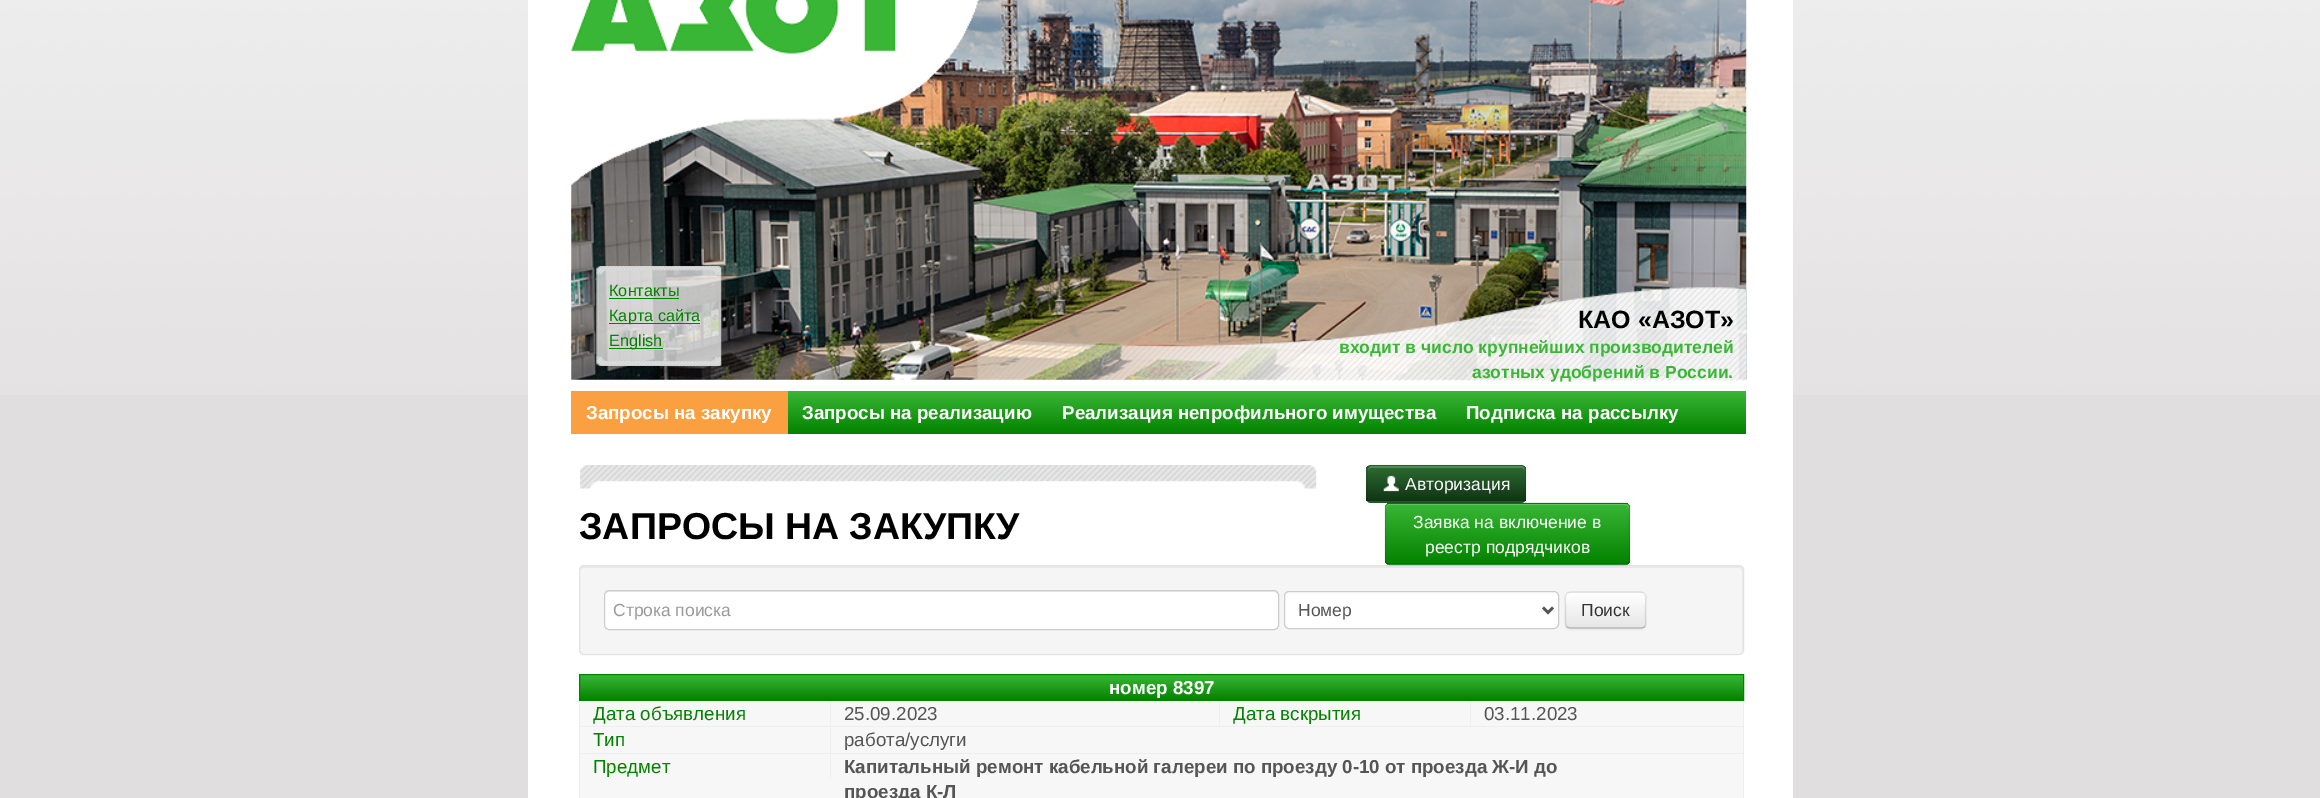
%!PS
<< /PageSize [2320 798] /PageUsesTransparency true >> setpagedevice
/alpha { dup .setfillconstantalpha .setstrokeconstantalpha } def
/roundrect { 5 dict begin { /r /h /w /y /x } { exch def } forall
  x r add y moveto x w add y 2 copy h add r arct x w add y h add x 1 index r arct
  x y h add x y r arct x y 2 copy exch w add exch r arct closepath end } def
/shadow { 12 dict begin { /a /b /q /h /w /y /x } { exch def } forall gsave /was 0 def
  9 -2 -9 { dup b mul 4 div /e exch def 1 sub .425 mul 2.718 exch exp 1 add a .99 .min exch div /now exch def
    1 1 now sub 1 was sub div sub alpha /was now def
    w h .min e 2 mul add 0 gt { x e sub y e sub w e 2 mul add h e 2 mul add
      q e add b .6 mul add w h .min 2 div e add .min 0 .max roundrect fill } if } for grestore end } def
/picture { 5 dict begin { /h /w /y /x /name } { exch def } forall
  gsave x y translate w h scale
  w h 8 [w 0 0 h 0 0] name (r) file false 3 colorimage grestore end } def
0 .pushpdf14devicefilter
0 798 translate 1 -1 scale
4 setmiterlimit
0.878 0.871 0.875 setrgbcolor
0 0 2320 798 rectfill
(img1.rgb) 0 0 2320 395 picture
1 setgray
528 0 1265 798 rectfill
(img2.rgb) 571 0 1176 380 picture
(img3.rgb) 571 0 326 54 picture
(img4.rgb) 596 266 126 100 picture
/LiberationSans-Regular [16.25 0 0 -16.25 0 0] selectfont
0.012 0.51 0 setrgbcolor
609 296 moveto (Контакты) show
609 298 70 1 rectfill
609 323 91 1 rectfill
609 321 moveto (Карта сайта) show
609 348 54 1 rectfill
609 346 moveto (English) show
(img5.rgb) 977 287 770 94 picture
/LiberationSans-Bold [25 0 0 -25 0 0] selectfont
0 setgray
1578 328 moveto (КАО «АЗОТ») show
/LiberationSans-Bold [17.5 0 0 -17.5 0 0] selectfont
0.224 0.714 0.208 setrgbcolor
1339 353 moveto (входит в число крупнейших производителей) show
1472 378 moveto (азотных удобрений в России.) show
gsave newpath 788 391 moveto 1746 391 lineto 1746 434 lineto 788 434 lineto closepath clip newpath
<< /ShadingType 2 /ColorSpace /DeviceRGB /Coords [1159 434 1159 391] /Extend [true true] /Function << /FunctionType 2 /Domain [0 1] /C0 [0.012 0.51 0] /C1 [0.224 0.714 0.208] /N 1 >> >> shfill grestore
0.98 0.627 0.255 setrgbcolor
571 391 217 43 rectfill
/LiberationSans-Bold [18.75 0 0 -18.75 0 0] selectfont
1 setgray
586 419 moveto (Запросы на закупку) show
802 419 moveto (Запросы на реализацию) show
1062 419 moveto (Реализация непрофильного имущества) show
1466 419 moveto (Подписка на рассылку) show
(img6.rgb) 580 465 737 24 picture
/LiberationSans-Bold [37.5 0 0 -37.5 0 0] selectfont
0 setgray
579 539 moveto (ЗАПРОСЫ НА ЗАКУПКУ) show
1366 466 160 38 5 1 0.05 shadow
0.169 0.424 0.196 setrgbcolor
1366 465 160 38 5 roundrect fill
gsave
1366 465 160 38 5 roundrect clip newpath
gsave newpath 1366 466 moveto 1526 466 lineto 1526 501 lineto 1366 501 lineto closepath clip newpath
<< /ShadingType 2 /ColorSpace /DeviceRGB /Coords [1446 501 1446 466] /Extend [true true] /Function << /FunctionType 2 /Domain [0 1] /C0 [0.067 0.204 0.078] /C1 [0.169 0.424 0.196] /N 1 >> >> shfill grestore
grestore
0.2 alpha
1 setgray
newpath 1371 468 moveto 1521 468 lineto 1523 468 1525 469 1525 471 curveto 1525 469 1524 467 1522 466 curveto 1371 466 lineto 1369 467 1368 469 1368 471 curveto 1368 469 1369 468 1371 468 curveto closepath fill
0.25 alpha
0 setgray
1.2 setlinewidth
newpath 1524.5 500.5 moveto 1523.5 501.5 1522.5 502 1521 502 curveto 1371 502 lineto 1370 502 1369 501.5 1368 500.5 curveto stroke
0.1 alpha
newpath 1368 500.5 moveto 1367.5 500 1367 498.5 1367 497.5 curveto 1367 470 lineto 1367 469 1367.5 467.5 1368 467 curveto 1369 466 1370 465.5 1371 465.5 curveto 1521 465.5 lineto 1522.5 465.5 1523.5 466 1524.5 467 curveto 1525 467.5 1525.5 469 1525.5 470 curveto 1525.5 497.5 lineto 1525.5 498.5 1525 500 1524.5 500.5 curveto stroke
1 alpha
(img7.rgb) 1383 475 16 17 picture
/LiberationSans-Regular [17.5 0 0 -17.5 0 0] selectfont
1 setgray
1405 490 moveto (Авторизация) show
0.961 setgray
579 565 1165 90 5 roundrect fill
0.914 setgray
newpath 584 568 moveto 1739 568 lineto 1741 568 1742 569 1742 571 curveto 1742 651 lineto 1742 653 lineto 1742 652 1743 651 1743 650 curveto 1743 570 lineto 1743 568 1741 566 1739 566 curveto 584 566 lineto 582 566 580 568 580 570 curveto 580 571 lineto 580 569 582 568 584 568 curveto closepath fill
0.89 setgray
1 setlinewidth
579.5 565.5 1164 89 4.5 roundrect stroke
0 setgray
1385 504 245 62 5 1 0.05 shadow
gsave
1385 503 245 62 5 roundrect clip newpath
gsave newpath 1385 503 moveto 1630 503 lineto 1630 504 lineto 1385 504 lineto closepath clip newpath
<< /ShadingType 2 /ColorSpace /DeviceRGB /Coords [1508 504 1508 444] /Extend [true true] /Function << /FunctionType 2 /Domain [0 1] /C0 [0.012 0.51 0] /C1 [0.224 0.714 0.208] /N 1 >> >> shfill grestore
gsave newpath 1385 504 moveto 1630 504 lineto 1630 564 lineto 1385 564 lineto closepath clip newpath
<< /ShadingType 2 /ColorSpace /DeviceRGB /Coords [1508 564 1508 504] /Extend [true true] /Function << /FunctionType 2 /Domain [0 1] /C0 [0.012 0.51 0] /C1 [0.224 0.714 0.208] /N 1 >> >> shfill grestore
gsave newpath 1385 564 moveto 1630 564 lineto 1630 565 lineto 1385 565 lineto closepath clip newpath
<< /ShadingType 2 /ColorSpace /DeviceRGB /Coords [1508 624 1508 564] /Extend [true true] /Function << /FunctionType 2 /Domain [0 1] /C0 [0.012 0.51 0] /C1 [0.224 0.714 0.208] /N 1 >> >> shfill grestore
grestore
0.38 0.773 0.365 setrgbcolor
newpath 1390 505 moveto 1625 505 lineto 1627 505 1629 507 1629 509 curveto 1629 508 lineto 1629 506 1627 504 1625 504 curveto 1390 504 lineto 1388 504 1386 506 1386 508 curveto 1386 509 lineto 1386 507 1388 505 1390 505 curveto closepath fill
0.25 alpha
0 setgray
1.2 setlinewidth
newpath 1628 563 moveto 1627.5 564 1626 564.5 1625 564.5 curveto 1390 564.5 lineto 1389 564.5 1387.5 564 1387 563 curveto stroke
0.1 alpha
newpath 1387 563 moveto 1386 562.5 1385.5 561 1385.5 560 curveto 1385.5 507.5 lineto 1385.5 506.5 1386 505 1387 504.5 curveto 1387.5 503.5 1389 503 1390 503 curveto 1625 503 lineto 1626 503 1627.5 503.5 1628 504.5 curveto 1629 505 1629.5 506.5 1629.5 507.5 curveto 1629.5 560 lineto 1629.5 561 1629 562.5 1628 563 curveto stroke
1 alpha
1 setgray
1413 528 moveto (Заявка на включение в) show
1425 553 moveto (реестр подрядчиков) show
604 590 675 40 5 roundrect fill
0.925 setgray
newpath 609 592 moveto 1274 592 lineto 1276 592 1278 594 1278 596 curveto 1278 593 1277 591 1274 591 curveto 609 591 lineto 606 592 lineto 605 593 lineto 605 596 lineto 605 594 607 592 609 592 curveto closepath fill
0.8 setgray
1 setlinewidth
604.5 590.5 674 39 4.5 roundrect stroke
0.6 setgray
613 616 moveto (Cтрока поиска) show
1 setgray
1284.5 591.5 274 37 4.5 roundrect gsave fill grestore
0.8 setgray
stroke
0.333 setgray
2.5 setlinewidth
newpath 1543 607.5 moveto 1548 612.5 lineto 1553 607.5 lineto stroke
1298 616 moveto (Номер) show
0 setgray
1565 593 81 37 5 1 0.05 shadow
0.961 setgray
1565 591 81 38 5 roundrect fill
gsave
1565 591 81 38 5 roundrect clip newpath
gsave newpath 1565 593 moveto 1646 593 lineto 1646 628 lineto 1565 628 lineto closepath clip newpath
<< /ShadingType 2 /ColorSpace /DeviceRGB /Coords [1606 593 1606 628] /Extend [true true] /Function << /FunctionType 2 /Domain [0 1] /C0 [1 1 1] /C1 [0.902 0.902 0.902] /N 1 >> >> shfill grestore
grestore
0.702 setgray
1.2 setlinewidth
newpath 1644.5 627 moveto 1641.5 628 lineto 1569.5 628 lineto 1567 627 lineto stroke
0.1 alpha
0 setgray
newpath 1567 627 moveto 1565 625 1565.5 621.5 1565.5 619 curveto 1565.5 610 lineto 1565.5 590.5 1562.5 592 1582 592 curveto 1629.5 592 lineto 1649 592 1645.5 590.5 1645.5 610 curveto 1645.5 619 lineto 1645.5 621.5 1646.5 625 1644.5 627 curveto stroke
1 alpha
0.2 setgray
1581 616 moveto (Поиск) show
gsave newpath 580 675 moveto 1743 675 lineto 1743 700 lineto 580 700 lineto closepath clip newpath
<< /ShadingType 2 /ColorSpace /DeviceRGB /Coords [1161 700 1161 675] /Extend [true true] /Function << /FunctionType 2 /Domain [0 1] /C0 [0.012 0.51 0] /C1 [0.224 0.714 0.208] /N 1 >> >> shfill grestore
0.012 0.51 0 setrgbcolor
1 setlinewidth
579.5 674.5 1164 26 rectstroke
/LiberationSans-Bold [18.75 0 0 -18.75 0 0] selectfont
1 setgray
1109 694 moveto (номер 8397) show
0.969 setgray
580 701 1163 52 rectfill
0.933 setgray
1743 701 1 97 rectfill
579 726 1165 1 rectfill
579 701 1 27 rectfill
830 701 1 25 rectfill
/LiberationSans-Regular [18.75 0 0 -18.75 0 0] selectfont
0.012 0.51 0 setrgbcolor
593 720 moveto (Дата объявления) show
0.333 setgray
844 720 moveto (25.09.2023) show
0.933 setgray
1470 701 1 25 rectfill
1219 701 1 25 rectfill
0.012 0.51 0 setrgbcolor
1233 720 moveto (Дата вскрытия) show
0.333 setgray
1484 720 moveto (03.11.2023) show
0.933 setgray
579 753 1165 1 rectfill
579 728 1 70 rectfill
830 728 1 25 rectfill
0.012 0.51 0 setrgbcolor
593 746 moveto (Тип) show
0.333 setgray
844 746 moveto (работа/услуги) show
0.969 setgray
580 754 1163 44 rectfill
0.933 setgray
830 754 1 25 rectfill
0.012 0.51 0 setrgbcolor
593 773 moveto (Предмет) show
/LiberationSans-Bold [18.75 0 0 -18.75 0 0] selectfont
0.333 setgray
844 773 moveto (Капитальный ремонт кабельной галереи по проезду 0-10 от проезда Ж-И до) show
844 798 moveto (проезда К-Л) show
.poppdf14devicefilter showpage
